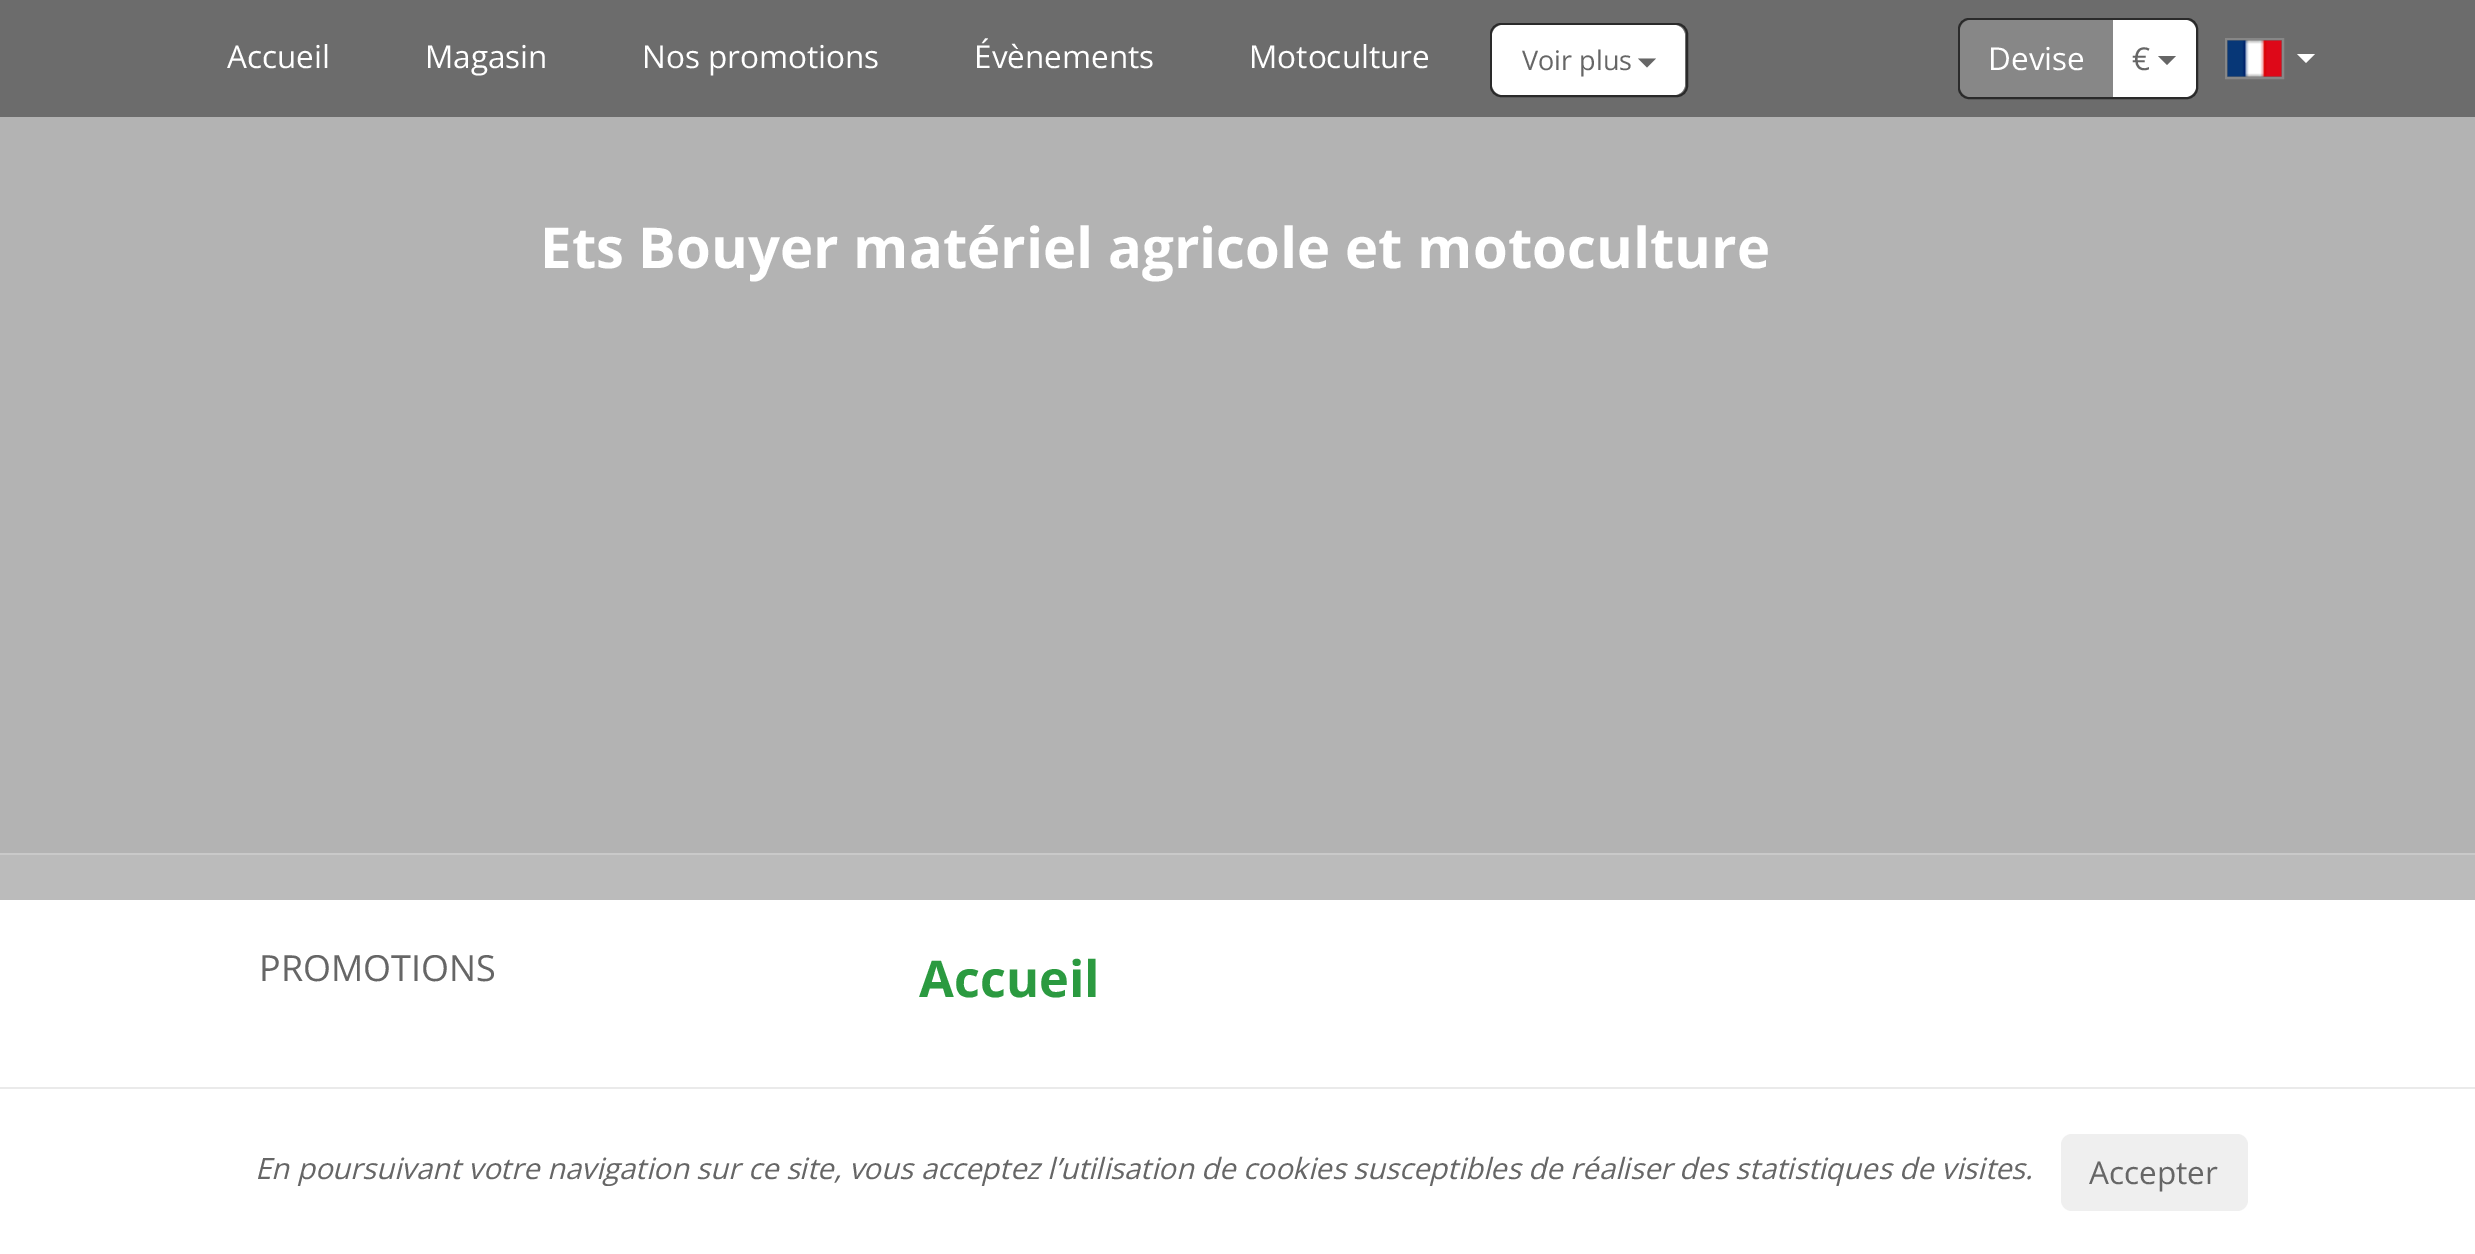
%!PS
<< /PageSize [2475 1254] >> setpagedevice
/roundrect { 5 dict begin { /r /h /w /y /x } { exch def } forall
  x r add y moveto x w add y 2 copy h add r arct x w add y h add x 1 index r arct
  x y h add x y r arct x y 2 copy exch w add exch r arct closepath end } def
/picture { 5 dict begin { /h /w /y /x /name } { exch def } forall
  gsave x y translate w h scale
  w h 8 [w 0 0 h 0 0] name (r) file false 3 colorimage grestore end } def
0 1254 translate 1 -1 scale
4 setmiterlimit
1 setgray
0 0 2475 1254 rectfill
0.424 setgray
0 0 2475 117 rectfill
/OpenSans-Regular [31.5 0 0 -31.5 0 0] selectfont
1 setgray
227 68 moveto (Accueil) show
425 68 moveto (Magasin) show
642 68 moveto (Nos promotions) show
974 68 moveto (Évènements) show
1249 68 moveto (Motoculture) show
0.165 setgray
2 setlinewidth
1491 24 196 72 10 roundrect stroke
1 setgray
1492 25 193 70 11 roundrect fill
/OpenSans-Regular [27 0 0 -27 0 0] selectfont
0.4 setgray
1522 70 moveto (Voir plus) show
newpath 1638 58.5 moveto 1656 58.5 lineto 1647 67.5 lineto closepath fill
0.165 setgray
1959 19 238 79 10 roundrect stroke
0.529 setgray
newpath 1971 20 moveto 2115 20 lineto 2115 97 lineto 1971 97 lineto 1965 97 1960 92 1960 86 curveto 1960 31 lineto 1960 25 1965 20 1971 20 curveto closepath fill
/OpenSans-Regular [31.5 0 0 -31.5 0 0] selectfont
1 setgray
1988 70 moveto (Devise) show
newpath 2113 20 moveto 2185 20 lineto 2191 20 2196 25 2196 31 curveto 2196 86 lineto 2196 92 2191 97 2185 97 curveto 2113 97 lineto closepath fill
0.4 setgray
2132 70 moveto (€) show
newpath 2158 56 moveto 2176 56 lineto 2167 65 lineto closepath fill
0.529 setgray
2226 39 57 39 rectstroke
(img1.rgb) 2227 40 55 37 picture
1 setgray
newpath 2297 54 moveto 2315 54 lineto 2306 63 lineto closepath fill
0.702 setgray
0 117 2475 736 rectfill
/OpenSans-Bold [56.25 0 0 -56.25 0 0] selectfont
1 setgray
540 268 moveto (Ets Bouyer matériel agricole et motoculture) show
0.733 setgray
0 855 2475 45 rectfill
0.788 setgray
0 853 2475 2 rectfill
/OpenSans-Regular [36 0 0 -36 0 0] selectfont
0.4 setgray
259 981 moveto (PROMOTIONS) show
/OpenSans-Bold [50.5 0 0 -50.5 0 0] selectfont
0.169 0.604 0.251 setrgbcolor
919 997 moveto (Accueil) show
0.918 setgray
0 1087 2475 2 rectfill
/OpenSans-Italic [29.25 0 0 -29.25 0 0] selectfont
0.4 setgray
255 1179 moveto (En poursuivant votre navigation sur ce site, vous acceptez l’utilisation de cookies susceptibles de réaliser des statistiques de visites.) show
0.937 setgray
2061 1134 187 77 11 roundrect fill
/OpenSans-Regular [31.5 0 0 -31.5 0 0] selectfont
0.4 setgray
2089 1184 moveto (Accepter) show
showpage
